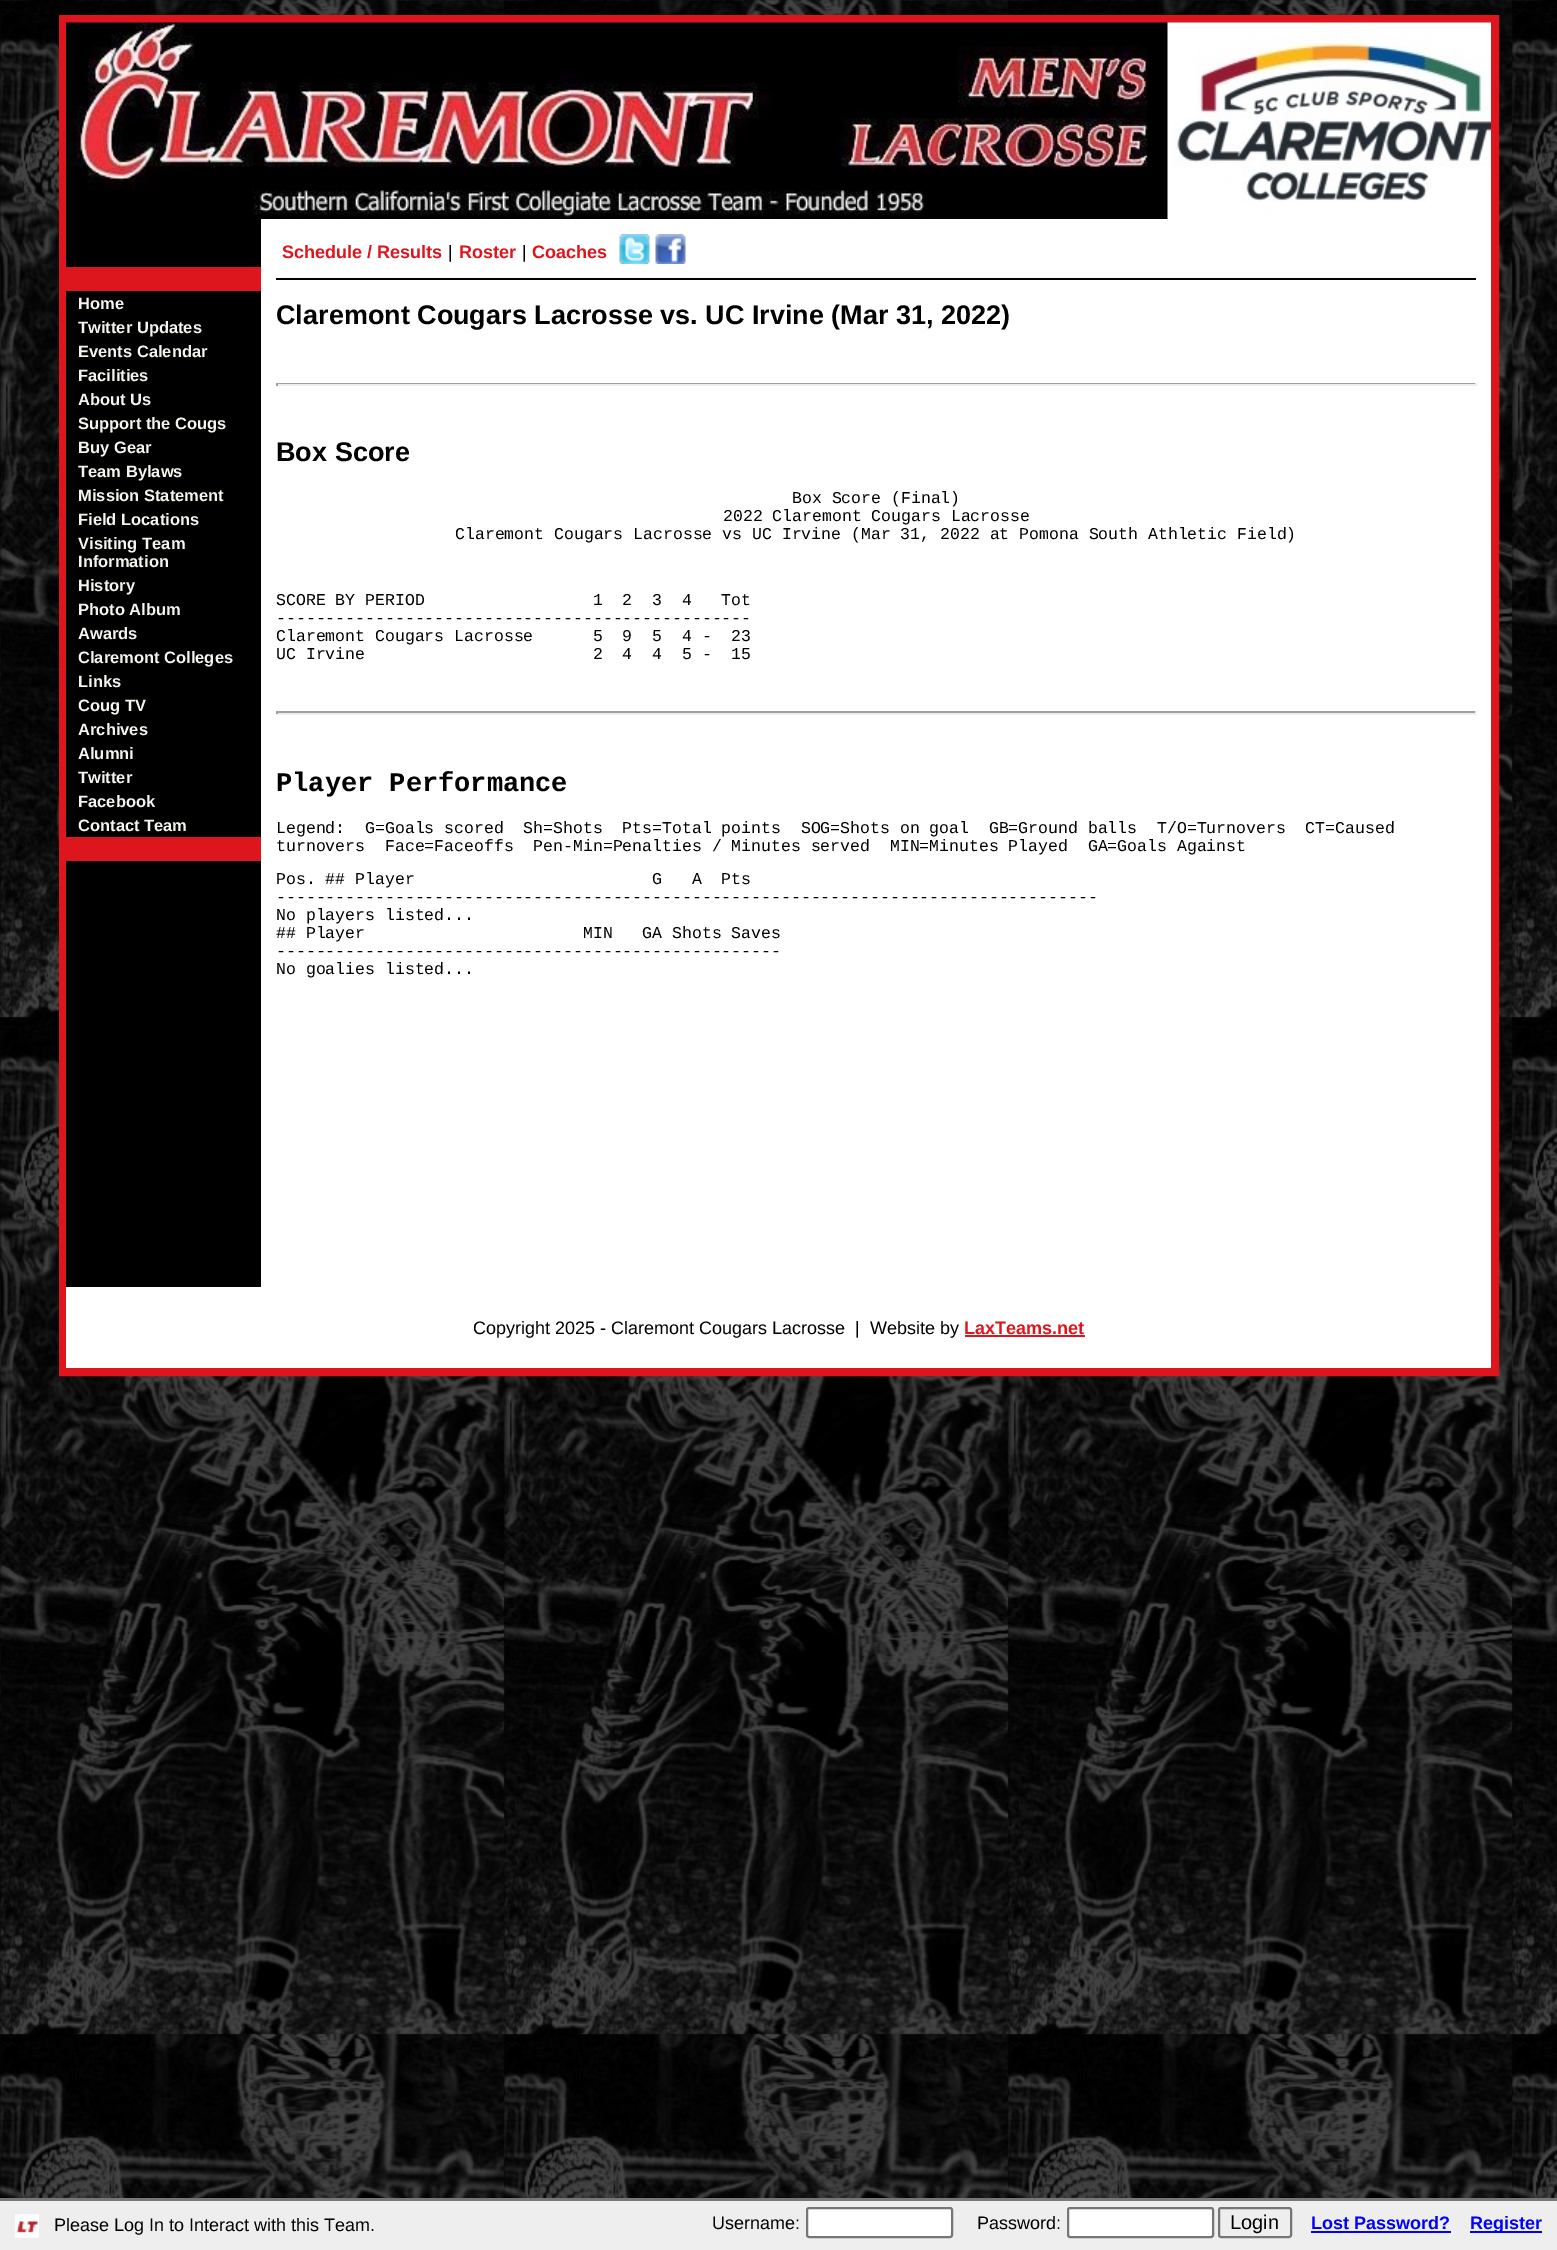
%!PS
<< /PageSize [1557 2250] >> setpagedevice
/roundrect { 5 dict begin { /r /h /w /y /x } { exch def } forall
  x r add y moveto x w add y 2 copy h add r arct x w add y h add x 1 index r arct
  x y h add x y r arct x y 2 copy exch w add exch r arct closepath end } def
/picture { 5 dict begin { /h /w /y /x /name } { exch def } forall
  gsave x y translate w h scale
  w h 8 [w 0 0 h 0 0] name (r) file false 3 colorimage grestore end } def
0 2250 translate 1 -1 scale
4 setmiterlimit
1 setgray
0 0 1557 2250 rectfill
(img1.rgb) 0 0 1557 2198 picture
261 219 1230 1068 rectfill
0.867 0.082 0.11 setrgbcolor
8 setlinewidth
63 19 1432 1353 rectstroke
(img2.rgb) 66 22 1425 197 picture
0 setgray
66 219 195 1068 rectfill
0.867 0.082 0.11 setrgbcolor
66 267 195 24 rectfill
/LiberationSans-Bold [16.5 0 0 -16.5 0 0] selectfont
0.961 0.961 0.941 setrgbcolor
78 309 moveto (Home) show
78 333 moveto (Twitter Updates) show
78 357 moveto (Events Calendar) show
78 381 moveto (Facilities) show
78 405 moveto (About Us) show
78 429 moveto (Support the Cougs) show
78 453 moveto (Buy Gear) show
78 477 moveto (Team Bylaws) show
78 501 moveto (Mission Statement) show
78 525 moveto (Field Locations) show
78 549 moveto (Visiting Team) show
78 567 moveto (Information) show
78 591 moveto (History) show
78 615 moveto (Photo Album) show
78 639 moveto (Awards) show
78 663 moveto (Claremont Colleges) show
78 687 moveto (Links) show
78 711 moveto (Coug TV) show
78 735 moveto (Archives) show
78 759 moveto (Alumni) show
78 783 moveto (Twitter) show
78 807 moveto (Facebook) show
78 831 moveto (Contact Team) show
0.867 0.082 0.11 setrgbcolor
66 837 195 24 rectfill
0 setgray
276 278 1200 2 rectfill
/LiberationSans-Bold [18 0 0 -18 0 0] selectfont
0.867 0.082 0.11 setrgbcolor
282 258 moveto (Schedule / Results) show
/LiberationSans-Regular [18 0 0 -18 0 0] selectfont
0 setgray
448 258 moveto (|) show
/LiberationSans-Bold [18 0 0 -18 0 0] selectfont
0.867 0.082 0.11 setrgbcolor
459 258 moveto (Roster) show
/LiberationSans-Regular [18 0 0 -18 0 0] selectfont
0 setgray
522 258 moveto (|) show
/LiberationSans-Bold [18 0 0 -18 0 0] selectfont
0.867 0.082 0.11 setrgbcolor
532 258 moveto (Coaches) show
(img3.rgb) 619 234 31 30 picture
(img4.rgb) 655 234 31 30 picture
/LiberationSans-Bold [27 0 0 -27 0 0] selectfont
0 setgray
276 324 moveto (Claremont Cougars Lacrosse vs. UC Irvine \(Mar 31, 2022\)) show
0.624 setgray
276 383 1200 1 rectfill
0.933 setgray
1475 383 2 3 rectfill
276 384 1200 2 rectfill
0.624 setgray
276 383 2 3 rectfill
0 setgray
276 461 moveto (Box Score) show
/LiberationMono-Regular [16.5 0 0 -16.5 0 0] selectfont
792 503 moveto (Box Score \(Final\)) show
723 521 moveto (2022 Claremont Cougars Lacrosse) show
455 539 moveto (Claremont Cougars Lacrosse vs UC Irvine \(Mar 31, 2022 at Pomona South Athletic Field\)) show
276 605 moveto (SCORE BY PERIOD                 1  2  3  4   Tot) show
276 623 moveto (------------------------------------------------) show
276 641 moveto (Claremont Cougars Lacrosse      5  9  5  4 -  23) show
276 659 moveto (UC Irvine                       2  4  4  5 -  15) show
0.624 setgray
276 711 1200 2 rectfill
0.933 setgray
1475 711 2 3 rectfill
276 713 1200 2 rectfill
0.624 setgray
276 711 2 3 rectfill
/LiberationMono-Bold [27 0 0 -27 0 0] selectfont
0 setgray
276 791 moveto (Player Performance) show
/LiberationMono-Regular [16.5 0 0 -16.5 0 0] selectfont
276 833 moveto (Legend:  G=Goals scored  Sh=Shots  Pts=Total points  SOG=Shots on goal  GB=Ground balls  T/O=Turnovers  CT=Caused) show
276 851 moveto (turnovers  Face=Faceoffs  Pen-Min=Penalties / Minutes served  MIN=Minutes Played  GA=Goals Against) show
276 884 moveto (Pos. ## Player                        G   A  Pts) show
276 902 moveto (-----------------------------------------------------------------------------------) show
276 920 moveto (No players listed...) show
276 938 moveto (## Player) show
583 938 moveto (MIN   GA Shots Saves) show
276 956 moveto (---------------------------------------------------) show
276 974 moveto (No goalies listed...) show
1 setgray
66 1287 1425 81 rectfill
/LiberationSans-Regular [18 0 0 -18 0 0] selectfont
0 setgray
473 1334 moveto (Copyright 2025 - Claremont Cougars Lacrosse  |  Website by) show
/LiberationSans-Bold [18 0 0 -18 0 0] selectfont
0.867 0.082 0.11 setrgbcolor
964 1334 moveto (LaxTeams.net) show
965 1335 120 2 rectfill
0.933 setgray
0 2201 1557 49 rectfill
(img5.rgb) 15 2214 24 24 picture
0.467 setgray
0 2198 1557 3 rectfill
/LiberationSans-Regular [18 0 0 -18 0 0] selectfont
0 setgray
54 2231 moveto (Please Log In to Interact with this Team.) show
712 2229 moveto (Username:) show
1 setgray
807 2208 145 29 2 roundrect gsave fill grestore
0.463 setgray
2 setlinewidth
stroke
0 setgray
977 2229 moveto (Password:) show
1 setgray
1068 2208 145 29 2 roundrect gsave fill grestore
0.463 setgray
stroke
1219 2208 72 29 2 roundrect stroke
/LiberationSans-Regular [20 0 0 -20 0 0] selectfont
0 setgray
1230 2229 moveto (Login) show
/LiberationSans-Bold [18 0 0 -18 0 0] selectfont
0 0 1 setrgbcolor
1311 2229 moveto (Lost Password?) show
1311 2231 140 2 rectfill
1470 2231 72 2 rectfill
1470 2229 moveto (Register) show
showpage
